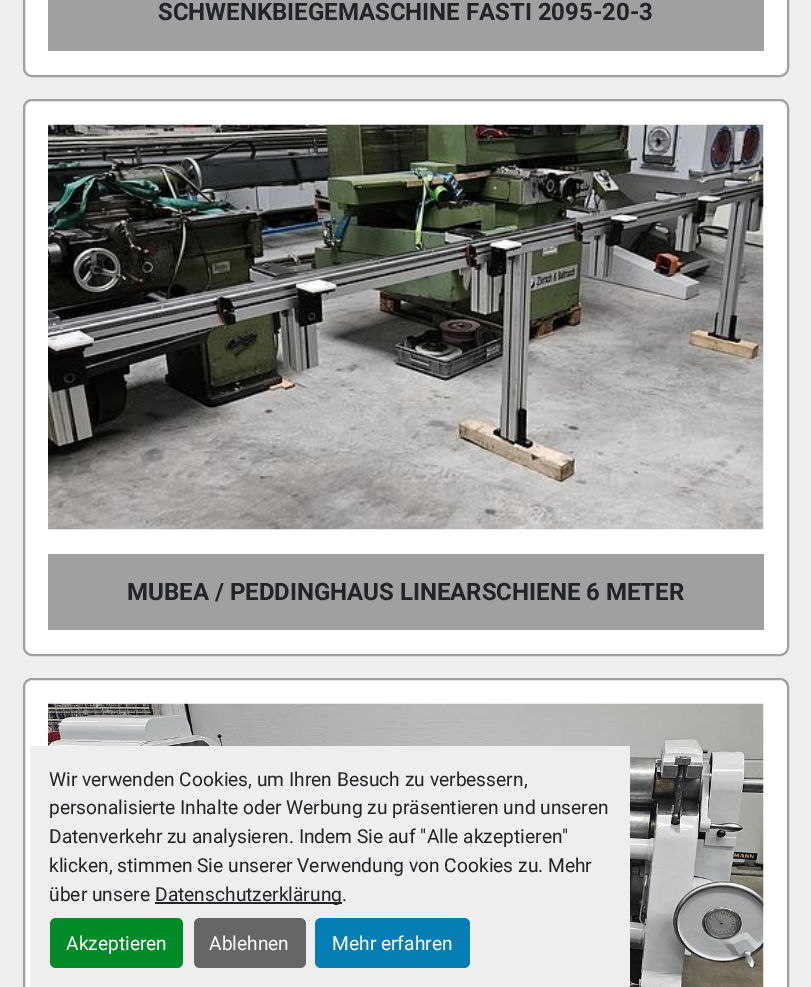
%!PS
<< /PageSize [811 987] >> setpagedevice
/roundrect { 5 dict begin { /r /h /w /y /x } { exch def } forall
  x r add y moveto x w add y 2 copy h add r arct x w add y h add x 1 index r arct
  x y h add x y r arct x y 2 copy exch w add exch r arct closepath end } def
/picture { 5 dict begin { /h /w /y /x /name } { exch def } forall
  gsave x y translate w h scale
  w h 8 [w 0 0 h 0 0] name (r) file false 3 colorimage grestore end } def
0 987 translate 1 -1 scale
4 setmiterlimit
0.933 setgray
0 0 811 987 rectfill
1 setgray
24 -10 764 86 8 roundrect gsave fill grestore
0.627 setgray
2 setlinewidth
stroke
48 0 716 51 rectfill
/Roboto-Bold [24 0 0 -24 0 0] selectfont
0.129 0.145 0.161 setrgbcolor
158 20 moveto (SCHWENKBIEGEMASCHINE FASTI 2095-20-3) show
1 setgray
24 100 764 555 8 roundrect gsave fill grestore
0.627 setgray
stroke
(img1.rgb) 48 124 716 406 picture
48 554 716 76 rectfill
0.129 0.145 0.161 setrgbcolor
127 600 moveto (MUBEA / PEDDINGHAUS LINEARSCHIENE 6 METER) show
1 setgray
24 679 764 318 8 roundrect gsave fill grestore
0.627 setgray
stroke
(img2.rgb) 48 703 716 284 picture
0.933 setgray
30 746 600 241 rectfill
/Roboto-Regular [19.2 0 0 -19.2 0 0] selectfont
0.129 0.145 0.161 setrgbcolor
49 786 moveto (Wir verwenden Cookies, um Ihren Besuch zu verbessern,) show
49 814 moveto (personalisierte Inhalte oder Werbung zu präsentieren und unseren) show
49 843 moveto (Datenverkehr zu analysieren. Indem Sie auf "Alle akzeptieren") show
49 872 moveto (klicken, stimmen Sie unserer Verwendung von Cookies zu. Mehr) show
49 901 moveto (über unsere) show
155 902 187 2 rectfill
155 901 moveto (Datenschutzerklärung.) show
0 0.541 0.157 setrgbcolor
50 918 133 50 6 roundrect fill
1 setgray
66 950 moveto (Akzeptieren) show
0.4 setgray
194 918 112 50 6 roundrect fill
1 setgray
209 950 moveto (Ablehnen) show
0.02 0.494 0.714 setrgbcolor
315 918 155 50 6 roundrect fill
1 setgray
332 950 moveto (Mehr erfahren) show
showpage
